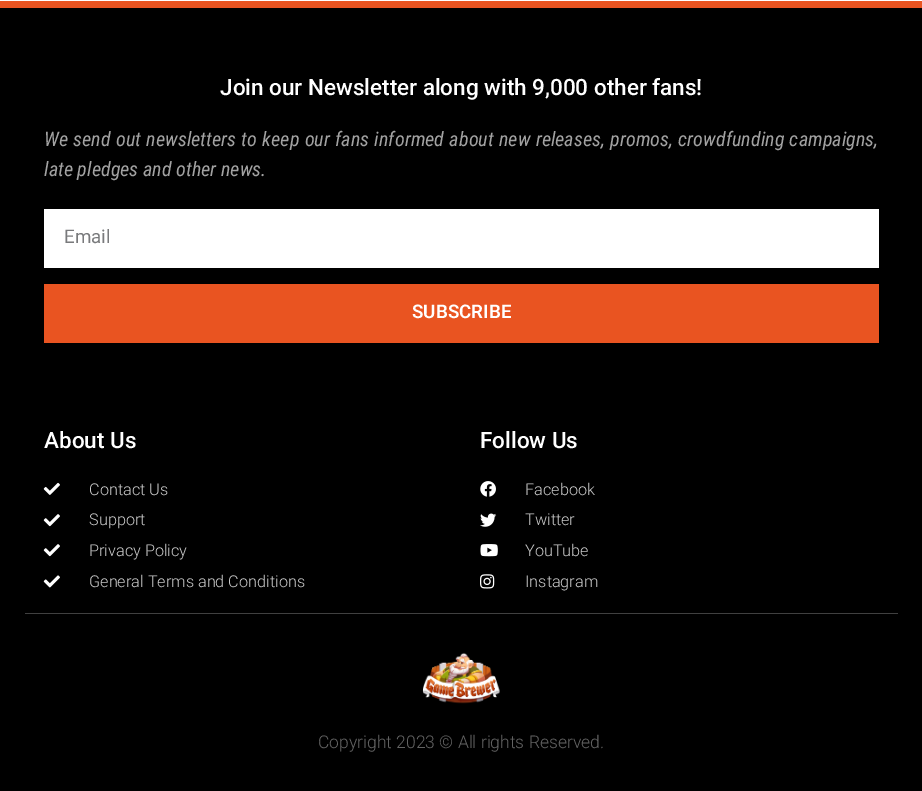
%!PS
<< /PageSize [922 791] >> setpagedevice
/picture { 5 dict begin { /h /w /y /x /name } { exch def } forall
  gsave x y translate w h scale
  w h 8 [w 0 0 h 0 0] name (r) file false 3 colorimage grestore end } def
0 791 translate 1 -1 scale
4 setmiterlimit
1 setgray
0 0 922 791 rectfill
0 setgray
0 8 922 783 rectfill
0.914 0.329 0.129 setrgbcolor
0 1 922 7 rectfill
/Roboto-Medium [22.5 0 0 -22.5 0 0] selectfont
1 setgray
220 95 moveto (Join our Newsletter along with 9,000 other fans!) show
/RobotoCondensed-Italic [20 0 0 -20 0 0] selectfont
0.635 setgray
44 146 moveto 0.75 0 32 (We send out newsletters to keep our fans informed about new releases, promos, crowdfunding campaigns,) widthshow
44 176 moveto (late pledges and other news.) show
1 setgray
44 209 835 59 rectfill
/Roboto-Regular [18.75 0 0 -18.75 0 0] selectfont
0.475 0.478 0.486 setrgbcolor
64 243 moveto (Email) show
0.914 0.329 0.129 setrgbcolor
44 284 835 59 rectfill
/Roboto-SemiBold [18.75 0 0 -18.75 0 0] selectfont
1 setgray
412 318 moveto (SUBSCRIBE) show
/Roboto-Medium [22.5 0 0 -22.5 0 0] selectfont
44 448 moveto (About Us) show
(img1.rgb) 43 482 17 13 picture
/Roboto-Light [16.25 0 0 -16.25 0 0] selectfont
0.788 setgray
89 495 moveto (Contact Us) show
(img2.rgb) 43 514 17 13 picture
89 525 moveto (Support) show
(img2.rgb) 43 544 17 13 picture
89 556 moveto (Privacy Policy) show
(img3.rgb) 43 575 17 13 picture
89 587 moveto (General Terms and Conditions) show
/Roboto-Medium [22.5 0 0 -22.5 0 0] selectfont
1 setgray
480 448 moveto (Follow Us) show
(img4.rgb) 480 481 16 16 picture
/Roboto-Light [16.25 0 0 -16.25 0 0] selectfont
0.788 setgray
525 495 moveto (Facebook) show
(img5.rgb) 480 513 17 14 picture
525 525 moveto (Twitter) show
(img6.rgb) 480 544 18 13 picture
525 556 moveto (YouTube) show
(img7.rgb) 480 574 15 15 picture
525 587 moveto (Instagram) show
0.251 setgray
25 613 873 1 rectfill
(img8.rgb) 422 652 78 52 picture
/Roboto-Light [17.5 0 0 -17.5 0 0] selectfont
0.388 setgray
318 748 moveto (Copyright 2023 © All rights Reserved.) show
showpage
